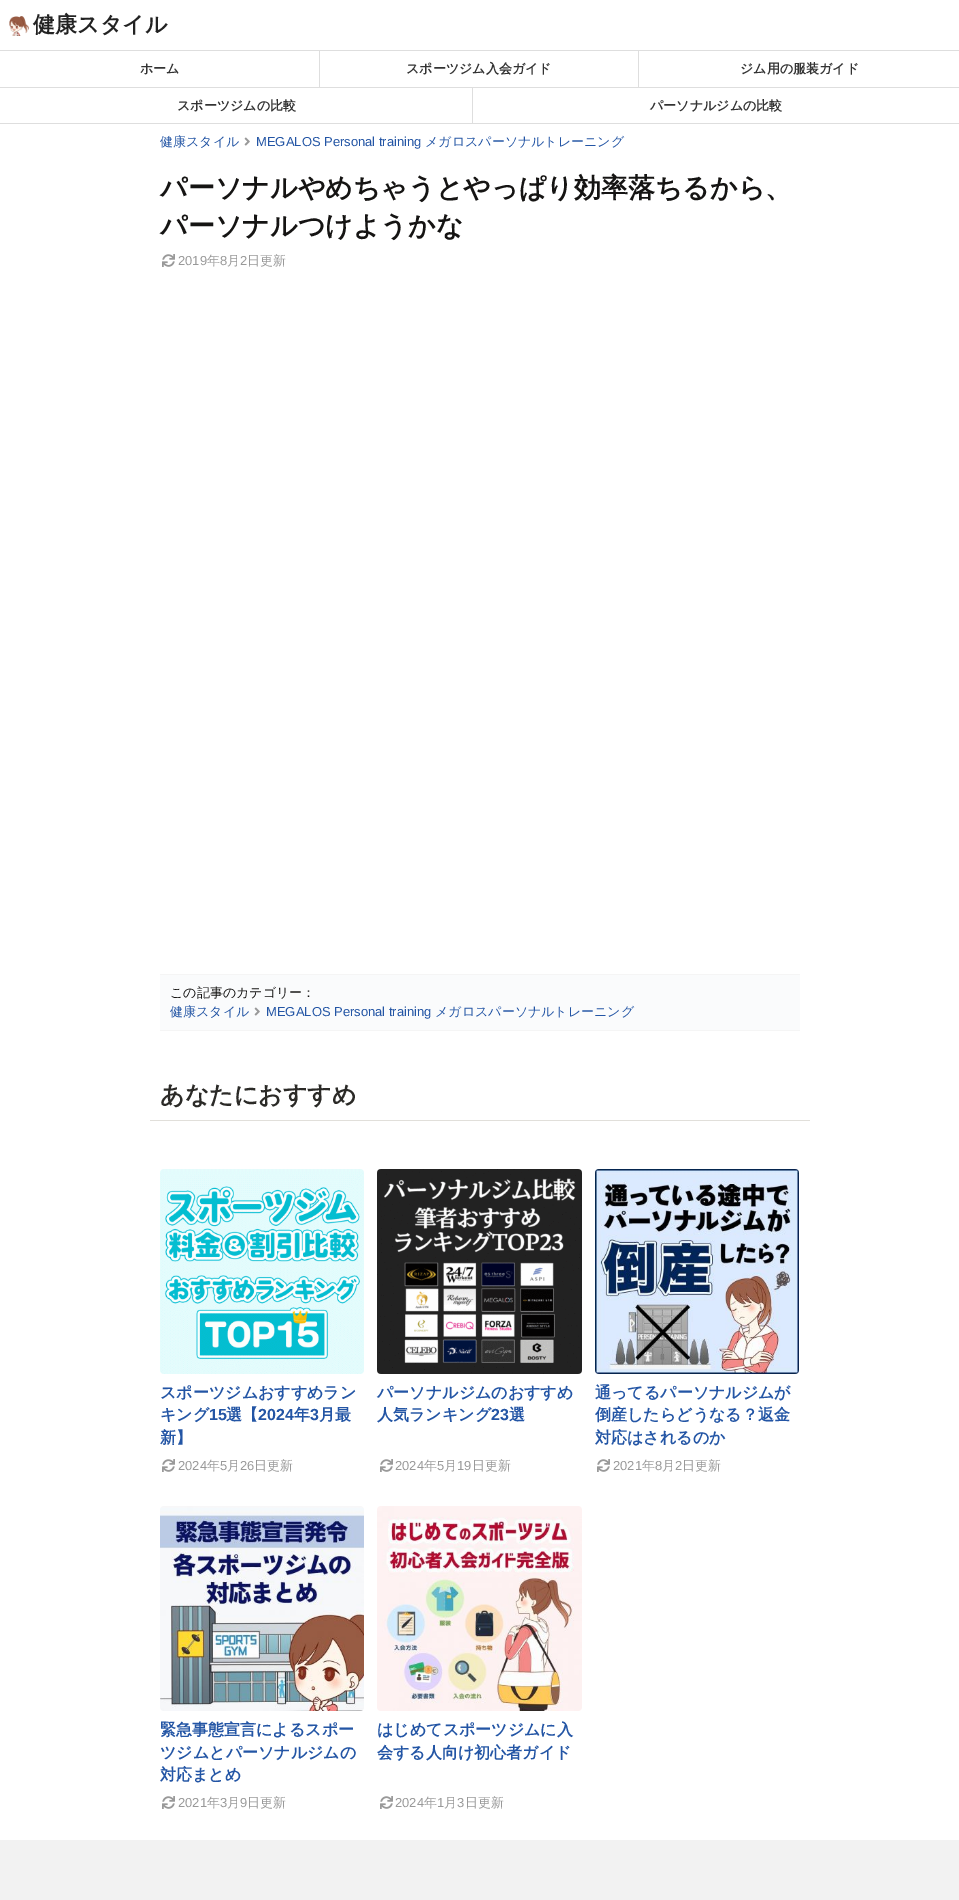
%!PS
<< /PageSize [959 1900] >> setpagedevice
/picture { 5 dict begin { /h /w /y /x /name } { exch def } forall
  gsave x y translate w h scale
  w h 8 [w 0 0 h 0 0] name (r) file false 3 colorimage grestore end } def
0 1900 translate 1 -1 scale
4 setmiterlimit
1 setgray
0 0 959 1900 rectfill
0.949 setgray
0 1840 959 60 rectfill
(img1.rgb) 9 16 20 20 picture
/WenQuanYiZenHei-Bold [22 0 0 -22 0 0] selectfont
0.133 setgray
33 32 moveto (健康スタイル) show
0.871 setgray
0 123 959 1 rectfill
0 50 959 1 rectfill
319 50 1 37 rectfill
/WenQuanYiZenHei-Bold [13 0 0 -13 0 0] selectfont
0.2 setgray
140 73 moveto (ホーム) show
0.871 setgray
638 50 1 37 rectfill
0.2 setgray
406 73 moveto (スポーツジム入会ガイド) show
740 73 moveto (ジム用の服装ガイド) show
0.871 setgray
0 87 959 1 rectfill
472 87 1 36 rectfill
0.2 setgray
177 110 moveto (スポーツジムの比較) show
650 110 moveto (パーソナルジムの比較) show
/WenQuanYiZenHei-Medium [13 0 0 -13 0 0] selectfont
0.137 0.333 0.647 setrgbcolor
160 146 moveto (健康スタイル) show
(img2.rgb) 244 137 6 9 picture
/LiberationSans-Regular [13 0 0 -13 0 0] selectfont
256 146 moveto (MEGALOS Personal training) show
/WenQuanYiZenHei-Medium [13 0 0 -13 0 0] selectfont
425 146 moveto (メガロスパーソナルトレーニング) show
/WenQuanYiZenHei-Bold [27 0 0 -27 0 0] selectfont
0.082 0.078 0.075 setrgbcolor
160 197 moveto (パーソナルやめちゃうとやっぱり効率落ちるから、) show
160 235 moveto (パーソナルつけようかな) show
(img3.rgb) 162 254 13 13 picture
/LiberationSans-Regular [13 0 0 -13 0 0] selectfont
0.6 setgray
178 265 moveto (2019) show
/WenQuanYiZenHei-Medium [13 0 0 -13 0 0] selectfont
207 265 moveto (年) show
/LiberationSans-Regular [13 0 0 -13 0 0] selectfont
220 265 moveto (8) show
/WenQuanYiZenHei-Medium [13 0 0 -13 0 0] selectfont
227 265 moveto (月) show
/LiberationSans-Regular [13 0 0 -13 0 0] selectfont
240 265 moveto (2) show
/WenQuanYiZenHei-Medium [13 0 0 -13 0 0] selectfont
247 265 moveto (日更新) show
0.98 0.984 0.988 setrgbcolor
160 975 640 55 rectfill
0.961 setgray
160 974 640 1 rectfill
160 1030 640 1 rectfill
0.082 0.078 0.075 setrgbcolor
170 997 moveto (この記事のカテゴリー：) show
0.137 0.333 0.647 setrgbcolor
170 1016 moveto (健康スタイル) show
(img4.rgb) 254 1007 6 9 picture
/LiberationSans-Regular [13 0 0 -13 0 0] selectfont
266 1016 moveto (MEGALOS Personal training) show
/WenQuanYiZenHei-Medium [13 0 0 -13 0 0] selectfont
435 1016 moveto (メガロスパーソナルトレーニング) show
0.882 0.875 0.855 setrgbcolor
150 1120 660 1 rectfill
/WenQuanYiZenHei-Bold [24 0 0 -24 0 0] selectfont
0.169 0.165 0.153 setrgbcolor
160 1103 moveto (あなたにおすすめ) show
(img5.rgb) 160 1169 204 205 picture
/WenQuanYiZenHei-Bold [16 0 0 -16 0 0] selectfont
0.137 0.333 0.647 setrgbcolor
160 1398 moveto (スポーツジムおすすめラン) show
160 1420 moveto (キング) show
/LiberationSans-Bold [16 0 0 -16 0 0] selectfont
209 1420 moveto (15) show
/WenQuanYiZenHei-Bold [16 0 0 -16 0 0] selectfont
226 1420 moveto (選【) show
/LiberationSans-Bold [16 0 0 -16 0 0] selectfont
258 1420 moveto (2024) show
/WenQuanYiZenHei-Bold [16 0 0 -16 0 0] selectfont
294 1420 moveto (年) show
/LiberationSans-Bold [16 0 0 -16 0 0] selectfont
310 1420 moveto (3) show
/WenQuanYiZenHei-Bold [16 0 0 -16 0 0] selectfont
319 1420 moveto (月最) show
160 1443 moveto (新】) show
(img3.rgb) 162 1459 13 13 picture
/LiberationSans-Regular [13 0 0 -13 0 0] selectfont
0.6 setgray
178 1470 moveto (2024) show
/WenQuanYiZenHei-Medium [13 0 0 -13 0 0] selectfont
207 1470 moveto (年) show
/LiberationSans-Regular [13 0 0 -13 0 0] selectfont
220 1470 moveto (5) show
/WenQuanYiZenHei-Medium [13 0 0 -13 0 0] selectfont
227 1470 moveto (月) show
/LiberationSans-Regular [13 0 0 -13 0 0] selectfont
240 1470 moveto (26) show
/WenQuanYiZenHei-Medium [13 0 0 -13 0 0] selectfont
254 1470 moveto (日更新) show
(img6.rgb) 377 1169 205 205 picture
/WenQuanYiZenHei-Bold [16 0 0 -16 0 0] selectfont
0.137 0.333 0.647 setrgbcolor
377 1398 moveto (パーソナルジムのおすすめ) show
377 1420 moveto (人気ランキング) show
/LiberationSans-Bold [16 0 0 -16 0 0] selectfont
491 1420 moveto (23) show
/WenQuanYiZenHei-Bold [16 0 0 -16 0 0] selectfont
509 1420 moveto (選) show
(img3.rgb) 380 1459 13 13 picture
/LiberationSans-Regular [13 0 0 -13 0 0] selectfont
0.6 setgray
395 1470 moveto (2024) show
/WenQuanYiZenHei-Medium [13 0 0 -13 0 0] selectfont
424 1470 moveto (年) show
/LiberationSans-Regular [13 0 0 -13 0 0] selectfont
437 1470 moveto (5) show
/WenQuanYiZenHei-Medium [13 0 0 -13 0 0] selectfont
444 1470 moveto (月) show
/LiberationSans-Regular [13 0 0 -13 0 0] selectfont
457 1470 moveto (19) show
/WenQuanYiZenHei-Medium [13 0 0 -13 0 0] selectfont
472 1470 moveto (日更新) show
(img7.rgb) 595 1169 204 205 picture
/WenQuanYiZenHei-Bold [16 0 0 -16 0 0] selectfont
0.137 0.333 0.647 setrgbcolor
595 1398 moveto (通ってるパーソナルジムが) show
595 1420 moveto (倒産したらどうなる？返金) show
595 1443 moveto (対応はされるのか) show
(img3.rgb) 597 1459 13 13 picture
/LiberationSans-Regular [13 0 0 -13 0 0] selectfont
0.6 setgray
613 1470 moveto (2021) show
/WenQuanYiZenHei-Medium [13 0 0 -13 0 0] selectfont
642 1470 moveto (年) show
/LiberationSans-Regular [13 0 0 -13 0 0] selectfont
655 1470 moveto (8) show
/WenQuanYiZenHei-Medium [13 0 0 -13 0 0] selectfont
662 1470 moveto (月) show
/LiberationSans-Regular [13 0 0 -13 0 0] selectfont
675 1470 moveto (2) show
/WenQuanYiZenHei-Medium [13 0 0 -13 0 0] selectfont
682 1470 moveto (日更新) show
(img8.rgb) 160 1506 204 205 picture
/WenQuanYiZenHei-Bold [16 0 0 -16 0 0] selectfont
0.137 0.333 0.647 setrgbcolor
160 1735 moveto (緊急事態宣言によるスポー) show
160 1758 moveto (ツジムとパーソナルジムの) show
160 1780 moveto (対応まとめ) show
(img3.rgb) 162 1796 13 13 picture
/LiberationSans-Regular [13 0 0 -13 0 0] selectfont
0.6 setgray
178 1807 moveto (2021) show
/WenQuanYiZenHei-Medium [13 0 0 -13 0 0] selectfont
207 1807 moveto (年) show
/LiberationSans-Regular [13 0 0 -13 0 0] selectfont
220 1807 moveto (3) show
/WenQuanYiZenHei-Medium [13 0 0 -13 0 0] selectfont
227 1807 moveto (月) show
/LiberationSans-Regular [13 0 0 -13 0 0] selectfont
240 1807 moveto (9) show
/WenQuanYiZenHei-Medium [13 0 0 -13 0 0] selectfont
247 1807 moveto (日更新) show
(img9.rgb) 377 1506 205 205 picture
/WenQuanYiZenHei-Bold [16 0 0 -16 0 0] selectfont
0.137 0.333 0.647 setrgbcolor
377 1735 moveto (はじめてスポーツジムに入) show
377 1758 moveto (会する人向け初心者ガイド) show
(img3.rgb) 380 1796 13 13 picture
/LiberationSans-Regular [13 0 0 -13 0 0] selectfont
0.6 setgray
395 1807 moveto (2024) show
/WenQuanYiZenHei-Medium [13 0 0 -13 0 0] selectfont
424 1807 moveto (年) show
/LiberationSans-Regular [13 0 0 -13 0 0] selectfont
437 1807 moveto (1) show
/WenQuanYiZenHei-Medium [13 0 0 -13 0 0] selectfont
444 1807 moveto (月) show
/LiberationSans-Regular [13 0 0 -13 0 0] selectfont
457 1807 moveto (3) show
/WenQuanYiZenHei-Medium [13 0 0 -13 0 0] selectfont
465 1807 moveto (日更新) show
showpage
